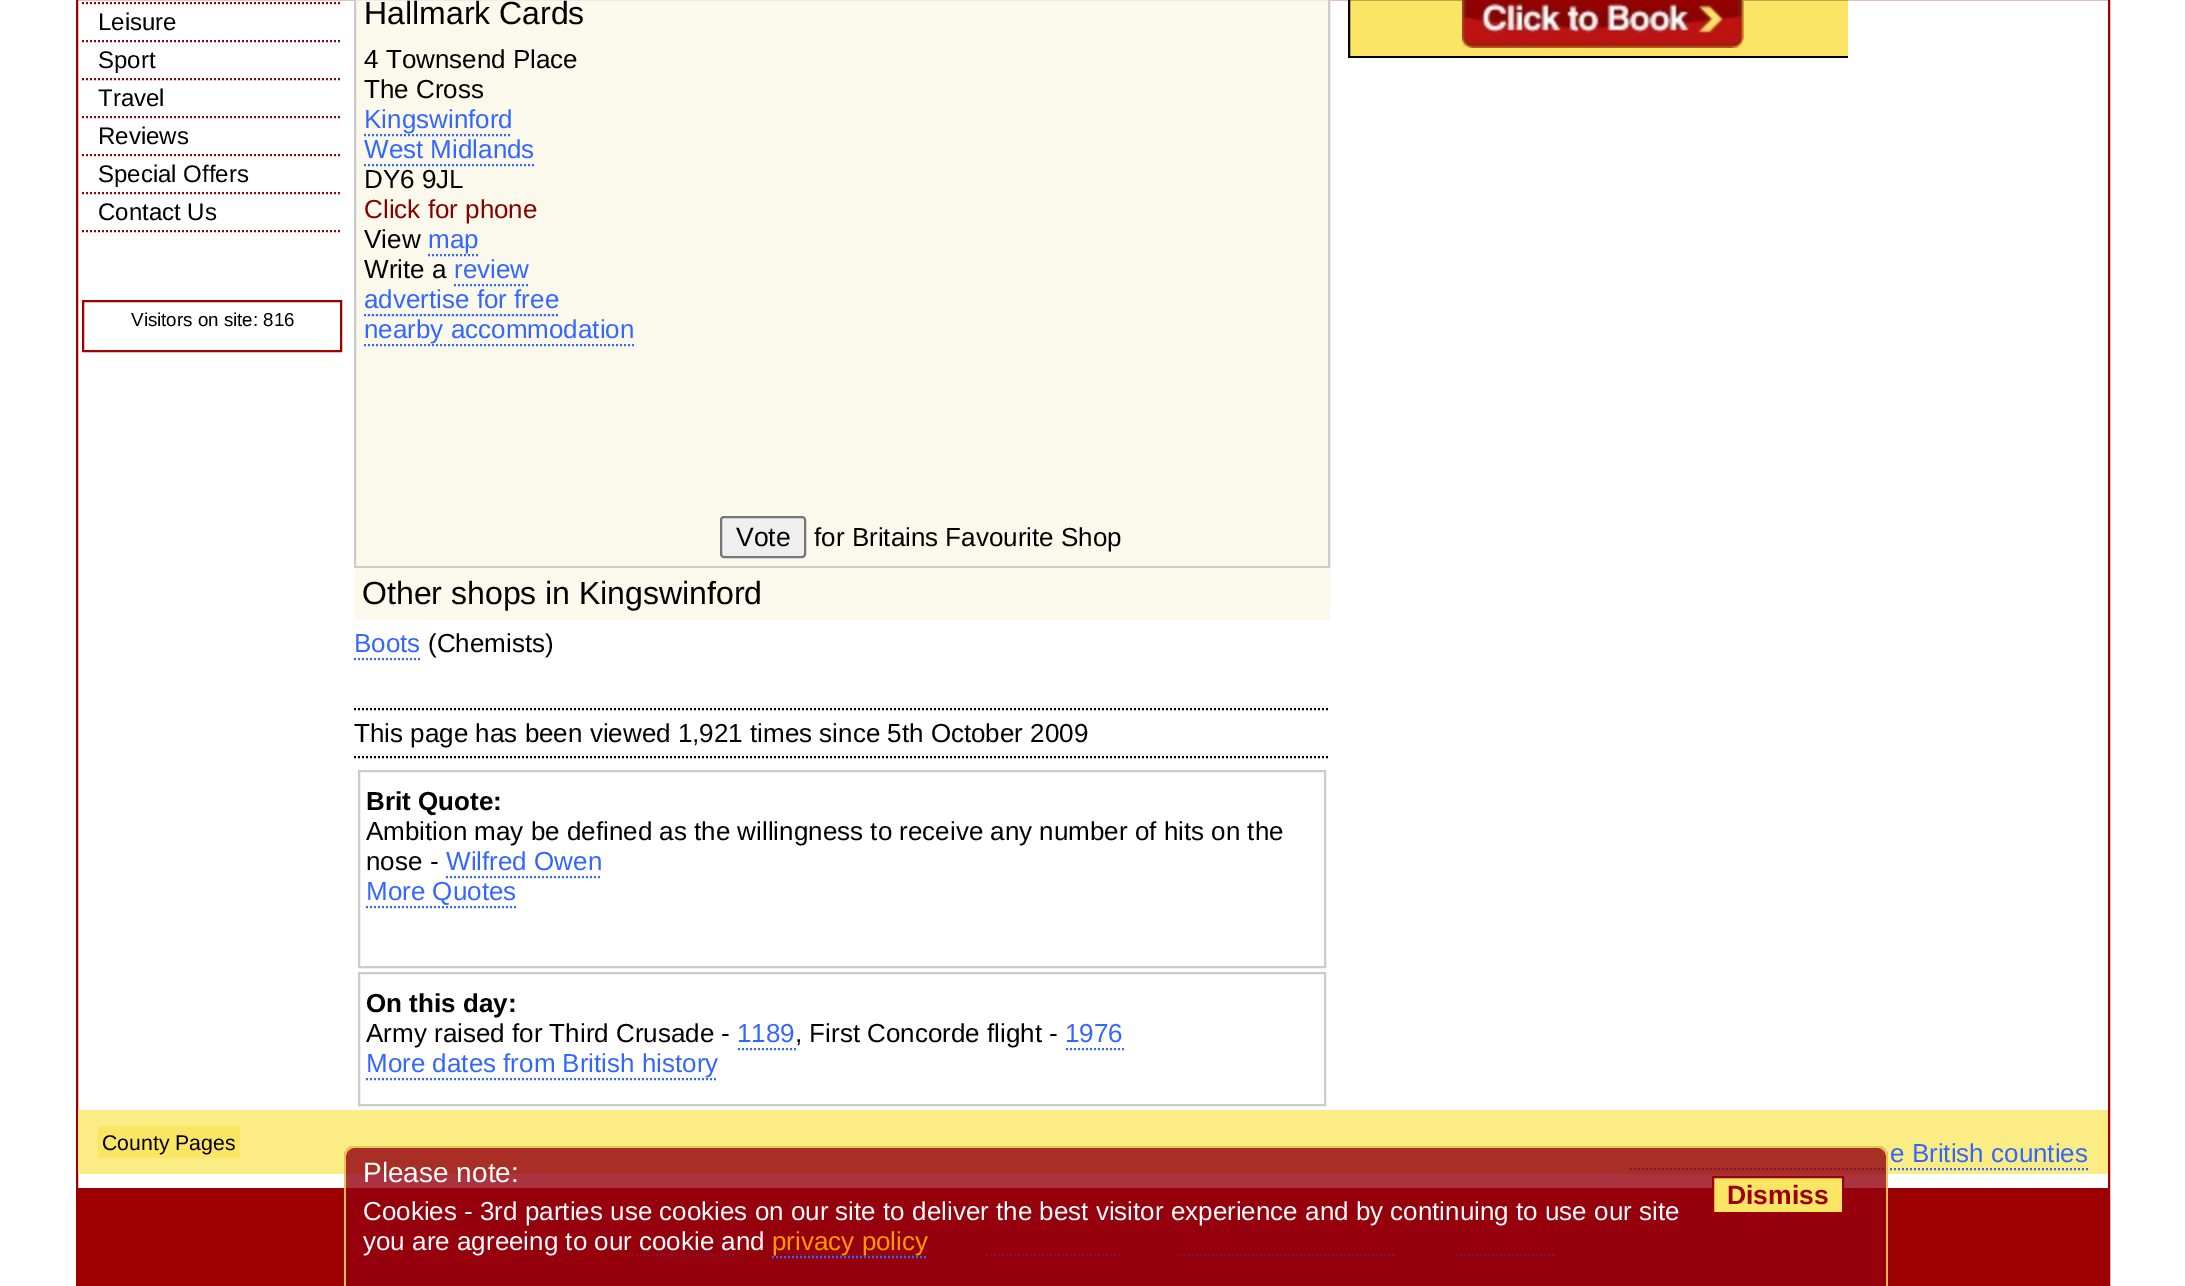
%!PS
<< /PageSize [2185 1286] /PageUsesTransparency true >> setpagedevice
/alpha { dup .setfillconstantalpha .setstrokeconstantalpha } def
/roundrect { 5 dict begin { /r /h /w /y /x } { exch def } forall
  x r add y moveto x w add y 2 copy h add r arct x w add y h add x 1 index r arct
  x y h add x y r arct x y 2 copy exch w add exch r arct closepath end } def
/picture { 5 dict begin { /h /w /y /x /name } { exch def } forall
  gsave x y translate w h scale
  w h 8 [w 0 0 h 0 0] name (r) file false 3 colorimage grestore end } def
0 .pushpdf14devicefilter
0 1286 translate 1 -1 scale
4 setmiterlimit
1 setgray
0 0 2185 1286 rectfill
0.612 0 0 setrgbcolor
2 setlinewidth
77 -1 2032 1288 rectstroke
[2 2] 0 setdash
newpath 82 3 moveto 342 3 lineto stroke
newpath 82 41 moveto 342 41 lineto stroke
/LiberationSans-Regular [24 0 0 -24 0 0] selectfont
0 setgray
98 30 moveto (Leisure) show
0.612 0 0 setrgbcolor
newpath 82 79 moveto 342 79 lineto stroke
0 setgray
98 68 moveto (Sport) show
0.612 0 0 setrgbcolor
newpath 82 117 moveto 342 117 lineto stroke
0 setgray
98 106 moveto (Travel) show
0.612 0 0 setrgbcolor
newpath 82 155 moveto 342 155 lineto stroke
0 setgray
98 144 moveto (Reviews) show
0.612 0 0 setrgbcolor
newpath 82 193 moveto 342 193 lineto stroke
0 setgray
98 182 moveto (Special Offers) show
0.612 0 0 setrgbcolor
newpath 82 231 moveto 342 231 lineto stroke
0 setgray
98 220 moveto (Contact Us) show
0.612 0 0 setrgbcolor
[] 0 setdash
83 301 258 50 rectstroke
/LiberationSans-Regular [18.75 0 0 -18.75 0 0] selectfont
0 setgray
131 326 moveto (Visitors on site: 816) show
0.98 0.976 0.922 setrgbcolor
newpath 355 -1 moveto 1329 -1 lineto 1329 567 lineto 355 567 lineto closepath gsave fill grestore
0.8 setgray
stroke
/LiberationSans-Regular [32 0 0 -32 0 0] selectfont
0 setgray
364 24 moveto (Hallmark Cards) show
/LiberationSans-Regular [26 0 0 -26 0 0] selectfont
364 68 moveto (4 Townsend Place) show
364 98 moveto (The Cross) show
0.2 0.4 1 setrgbcolor
364 128 moveto (Kingswinford) show
[2 2] 0 setdash
newpath 364 135 moveto 512 135 lineto stroke
364 158 moveto (West Midlands) show
newpath 364 165 moveto 534 165 lineto stroke
0 setgray
364 188 moveto (DY6 9JL) show
0.529 0 0 setrgbcolor
364 218 moveto (Click for phone) show
0 setgray
364 248 moveto (View) show
0.2 0.4 1 setrgbcolor
428 248 moveto (map) show
newpath 428 255 moveto 478 255 lineto stroke
0 setgray
364 278 moveto (Write a) show
0.2 0.4 1 setrgbcolor
454 278 moveto (review) show
newpath 454 285 moveto 528 285 lineto stroke
364 308 moveto (advertise for free) show
newpath 364 315 moveto 560 315 lineto stroke
364 338 moveto (nearby accommodation) show
newpath 364 345 moveto 634 345 lineto stroke
0.937 setgray
721 517 84 40 3 roundrect gsave fill grestore
0.463 setgray
[] 0 setdash
stroke
/LiberationSans-Regular [26.5 0 0 -26.5 0 0] selectfont
0 setgray
736 546 moveto (Vote) show
/LiberationSans-Regular [26 0 0 -26 0 0] selectfont
814 546 moveto (for Britains Favourite Shop) show
0.98 0.976 0.922 setrgbcolor
354 568 976 52 rectfill
/LiberationSans-Regular [32 0 0 -32 0 0] selectfont
0 setgray
362 604 moveto (Other shops in Kingswinford) show
/LiberationSans-Regular [26 0 0 -26 0 0] selectfont
0.2 0.4 1 setrgbcolor
354 652 moveto (Boots) show
[2 2] 0 setdash
newpath 354 659 moveto 420 659 lineto stroke
0 setgray
428 652 moveto (\(Chemists\)) show
newpath 354 709 moveto 1330 709 lineto stroke
newpath 354 757 moveto 1330 757 lineto stroke
354 742 moveto (This page has been viewed 1,921 times since 5th October 2009) show
0.8 setgray
[] 0 setdash
359 771 966 196 rectstroke
/LiberationSans-Bold [26 0 0 -26 0 0] selectfont
0 setgray
366 810 moveto (Brit Quote:) show
/LiberationSans-Regular [26 0 0 -26 0 0] selectfont
366 840 moveto (Ambition may be defined as the willingness to receive any number of hits on the) show
366 870 moveto (nose -) show
0.2 0.4 1 setrgbcolor
446 870 moveto (Wilfred Owen) show
[2 2] 0 setdash
newpath 446 877 moveto 602 877 lineto stroke
366 900 moveto (More Quotes) show
newpath 366 907 moveto 516 907 lineto stroke
0.8 setgray
[] 0 setdash
359 973 966 132 rectstroke
/LiberationSans-Bold [26 0 0 -26 0 0] selectfont
0 setgray
366 1012 moveto (On this day:) show
/LiberationSans-Regular [26 0 0 -26 0 0] selectfont
366 1042 moveto (Army raised for Third Crusade -) show
0.2 0.4 1 setrgbcolor
737 1042 moveto (1189) show
[2 2] 0 setdash
newpath 738 1049 moveto 796 1049 lineto stroke
0 setgray
795 1042 moveto (, First Concorde flight -) show
0.2 0.4 1 setrgbcolor
1065 1042 moveto (1976) show
newpath 1066 1049 moveto 1124 1049 lineto stroke
366 1072 moveto (More dates from British history) show
newpath 366 1079 moveto 718 1079 lineto stroke
0.98 0.902 0.392 setrgbcolor
1350 0 498 56 rectfill
gsave
1348 0 500 58 rectclip
0 setgray
[] 0 setdash
1349 -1 506 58 rectstroke
grestore
(img1.rgb) 1462 0 282 48 picture
0.984 0.925 0.518 setrgbcolor
78 1110 2030 64 rectfill
0.98 0.902 0.392 setrgbcolor
98 1126 142 32 rectfill
/LiberationSans-Regular [21.25 0 0 -21.25 0 0] selectfont
0 setgray
102 1150 moveto (County Pages) show
/LiberationSans-Regular [26 0 0 -26 0 0] selectfont
0.2 0.4 1 setrgbcolor
1890 1162 moveto (e British counties) show
newpath 1630 1169 moveto 2088 1169 lineto stroke
0.612 0 0 setrgbcolor
78 1188 2030 98 rectfill
0.2 0.4 1 setrgbcolor
newpath 632 1255 moveto 736 1255 lineto stroke
newpath 796 1255 moveto 924 1255 lineto stroke
newpath 986 1255 moveto 1120 1255 lineto stroke
newpath 1180 1255 moveto 1394 1255 lineto stroke
newpath 1456 1255 moveto 1554 1255 lineto stroke
0.8 alpha
0.584 0 0.059 setrgbcolor
newpath 354 1146 moveto 1878 1146 lineto 1883.5 1146 1888 1150.5 1888 1156 curveto 1888 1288 lineto 344 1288 lineto 344 1156 lineto 344 1150.5 348.5 1146 354 1146 curveto closepath fill
0.957 0.922 0.38 setrgbcolor
newpath 354 1146 moveto 1878 1146 lineto 1884 1146 1888 1150 1888 1156 curveto 1888 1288 lineto 344 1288 lineto 344 1156 lineto 344 1150 348 1146 354 1146 curveto closepath 354 1148 moveto 1878 1148 lineto 1882 1148 1886 1152 1886 1156 curveto 1886 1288 lineto 346 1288 lineto 346 1156 lineto 346 1152 350 1148 354 1148 curveto closepath eofill
/LiberationSans-Regular [28 0 0 -28 0 0] selectfont
1 alpha
1 setgray
363 1182 moveto (Please note:) show
0.98 0.902 0.392 setrgbcolor
newpath 1713 1177 moveto 1843 1177 lineto 1843 1213 lineto 1713 1213 lineto closepath gsave fill grestore
0.612 0 0 setrgbcolor
[] 0 setdash
stroke
/LiberationSans-Bold [26.5 0 0 -26.5 0 0] selectfont
1727 1204 moveto (Dismiss) show
/LiberationSans-Regular [26 0 0 -26 0 0] selectfont
1 setgray
363 1220 moveto (Cookies - 3rd parties use cookies on our site to deliver the best visitor experience and by continuing to use our site) show
363 1250 moveto (you are agreeing to our cookie and) show
1 0.6 0 setrgbcolor
772 1250 moveto (privacy policy) show
0.2 0.4 1 setrgbcolor
[2 2] 0 setdash
newpath 772 1257 moveto 928 1257 lineto stroke
.poppdf14devicefilter showpage
